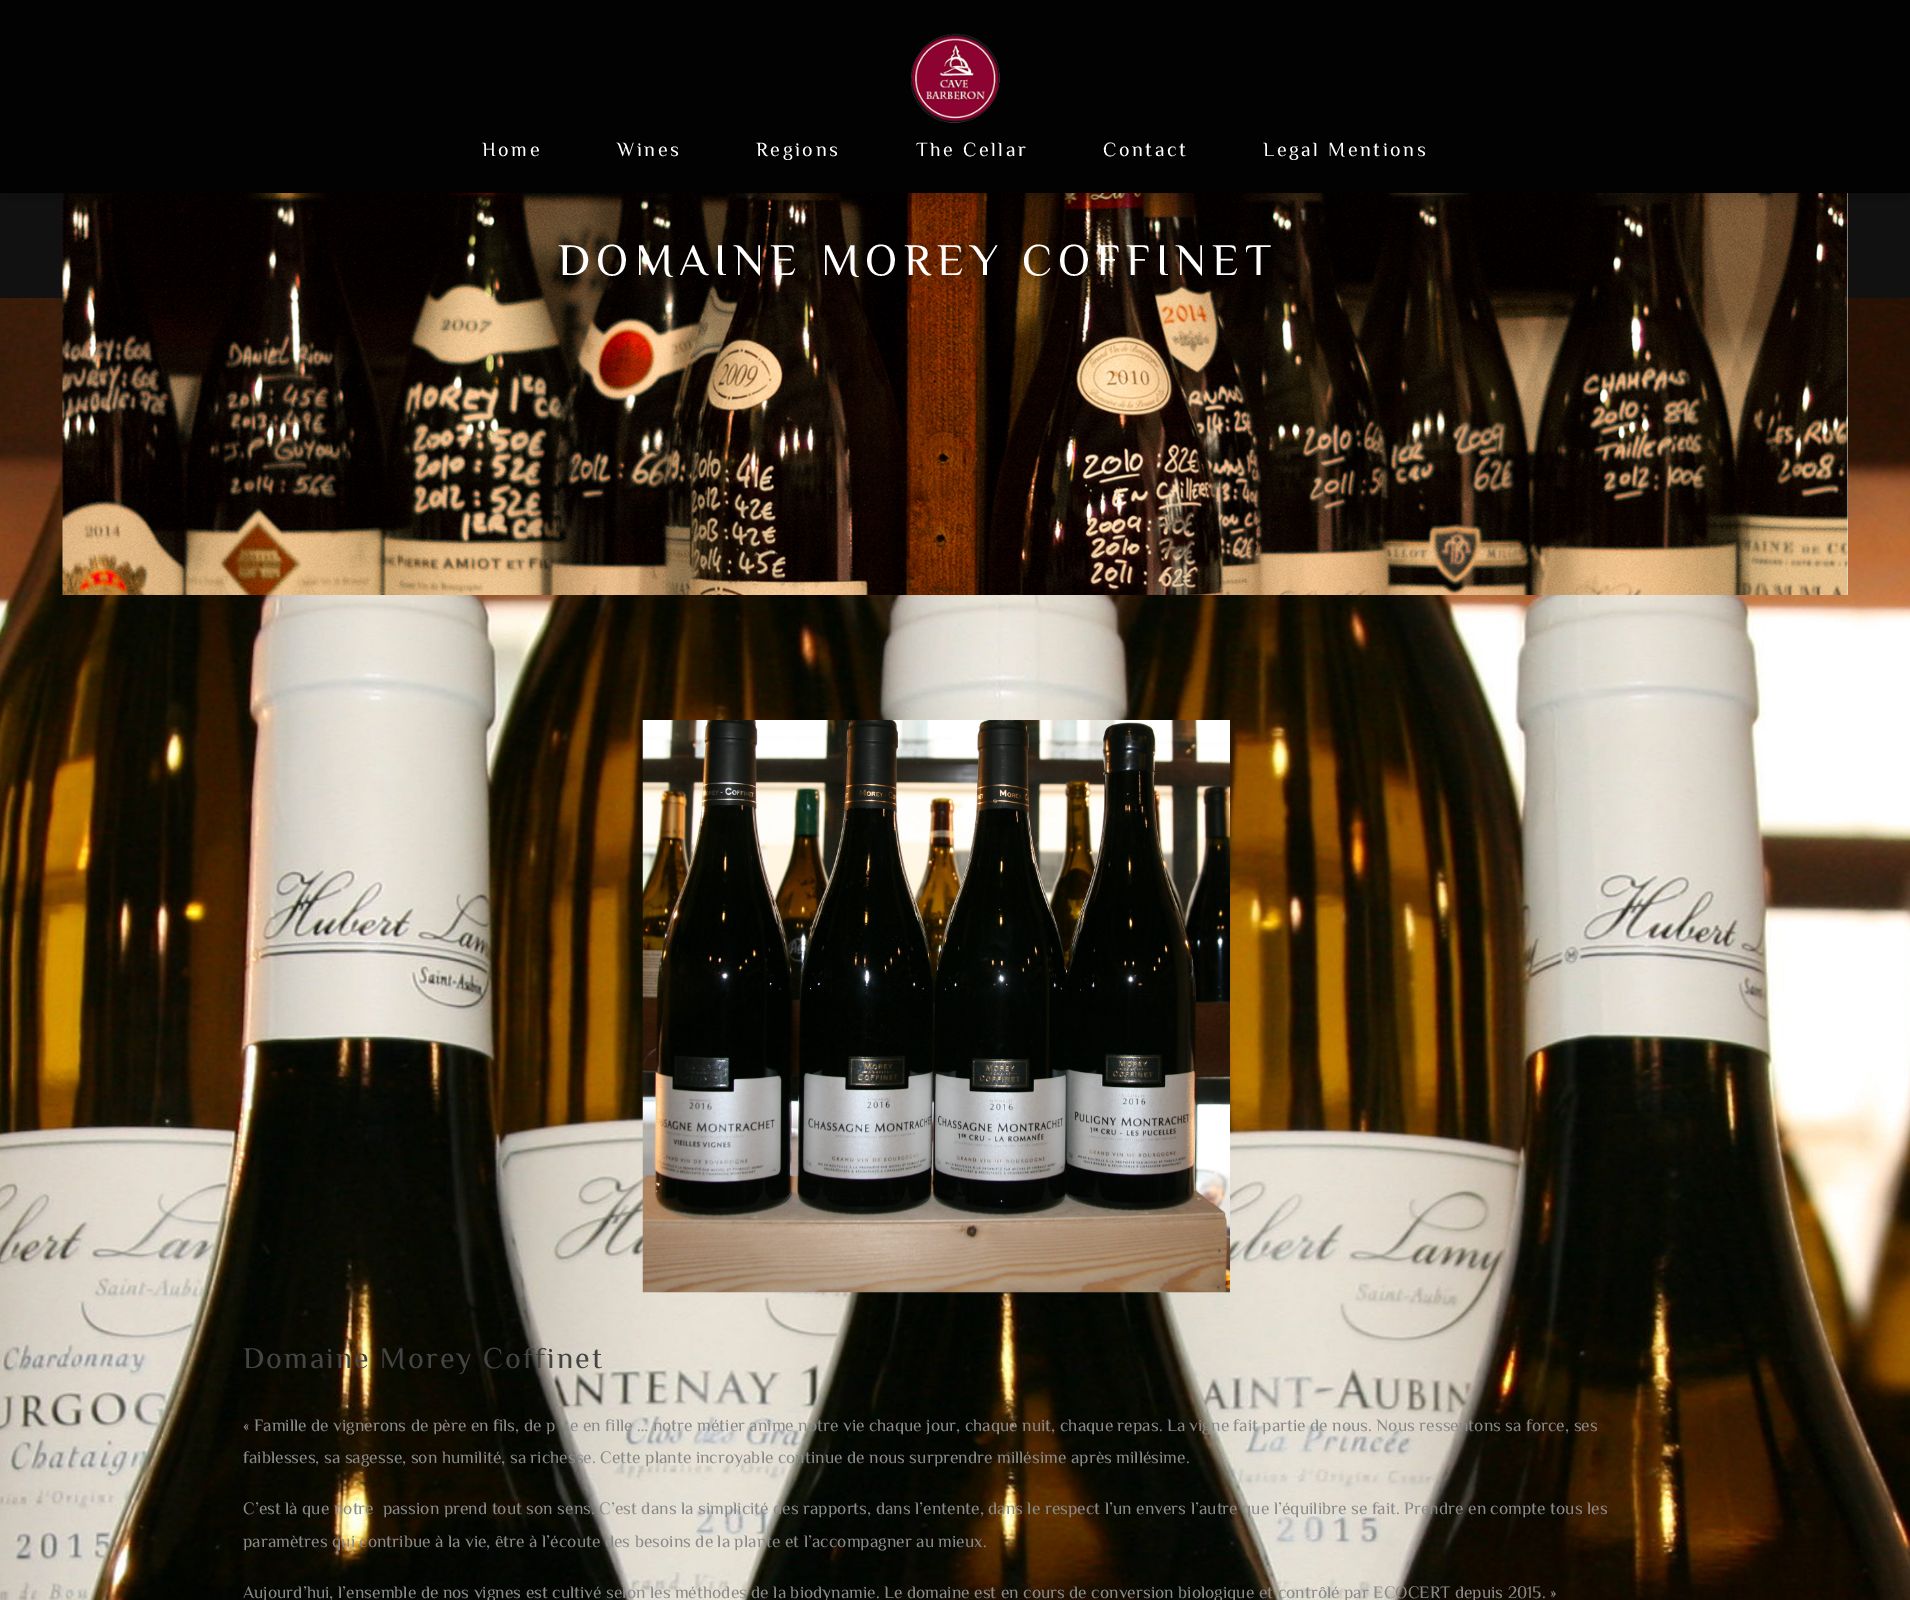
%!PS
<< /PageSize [1910 1600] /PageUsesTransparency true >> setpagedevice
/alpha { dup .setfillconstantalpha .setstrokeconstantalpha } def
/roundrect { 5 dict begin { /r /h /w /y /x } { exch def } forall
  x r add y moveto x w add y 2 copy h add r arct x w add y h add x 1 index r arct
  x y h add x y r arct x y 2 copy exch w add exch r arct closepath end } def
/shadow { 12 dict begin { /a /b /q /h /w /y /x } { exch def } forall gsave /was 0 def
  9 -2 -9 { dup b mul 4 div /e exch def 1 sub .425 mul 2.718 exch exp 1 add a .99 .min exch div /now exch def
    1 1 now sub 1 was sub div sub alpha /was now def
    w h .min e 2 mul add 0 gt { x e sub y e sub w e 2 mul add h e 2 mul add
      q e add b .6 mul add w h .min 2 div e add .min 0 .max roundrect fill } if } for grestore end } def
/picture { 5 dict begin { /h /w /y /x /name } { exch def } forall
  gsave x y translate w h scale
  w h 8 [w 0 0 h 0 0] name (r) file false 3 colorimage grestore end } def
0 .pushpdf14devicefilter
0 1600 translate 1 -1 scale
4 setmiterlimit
1 setgray
0 0 1910 1600 rectfill
(img1.rgb) 0 298 1910 1302 picture
0.067 setgray
0 193 1910 105 rectfill
0.898 setgray
1847 193 1 402 rectfill
(img3.rgb) 62 193 1786 402 picture
0 setgray
0 8 1910 192 0 7.5 0.18 shadow
0.008 setgray
0 0 1910 193 rectfill
(img2.rgb) 910 33 90 90 picture
/Philosopher-Regular [20 0 0 -20 0 0] selectfont
1 setgray
482 156 moveto 2.5 0 (Home) ashow
617 156 moveto 2.5 0 (Wines) ashow
756 156 moveto 2.5 0 (Regions) ashow
916 156 moveto 2.5 0 (The Cellar) ashow
1103 156 moveto 2.5 0 (Contact) ashow
1263 156 moveto 2.5 0 (Legal Mentions) ashow
/Philosopher-Regular [45 0 0 -45 0 0] selectfont
558 275 moveto 6.25 0 (DOMAINE MOREY COFFINET) ashow
(img4.rgb) 642 720 588 573 picture
/Philosopher-Regular [30 0 0 -30 0 0] selectfont
0.267 setgray
243 1368 moveto 2 0 (Domaine Morey Coffinet) ashow
/Philosopher-Regular [17.5 0 0 -17.5 0 0] selectfont
0.537 setgray
243 1431 moveto (« Famille de vignerons de père en fils, de p) show
570 1431 moveto (e en fille … notre métier anime notre vie chaque jour, chaque nuit, chaque repas. La vigne fait partie de nous. Nous ressentons sa force, ses) show
243 1463 moveto (faiblesses, sa sagesse, son humilité, sa richesse. Cette plante incroyable continue de nous surprendre millésime après millésime.) show
243 1514 moveto (C’est là que notre  passion prend tout son sens. C’est dans la simplicité des rapports, dans l’entente, dans le respect l’un envers l’autre que l’équilibre se fait. Prendre en compte tous les) show
243 1547 moveto (paramètres qui contribue à la vie, être à l’écoute des besoins de la plante et l’accompagner au mieux.) show
243 1598 moveto (Aujourd’hui, l’ensemble de nos vignes est cultivé selon les méthodes de la biodynamie. Le domaine est en cours de conversion biologique et contrôlé par ECOCERT depuis 2015. ») show
.poppdf14devicefilter showpage
